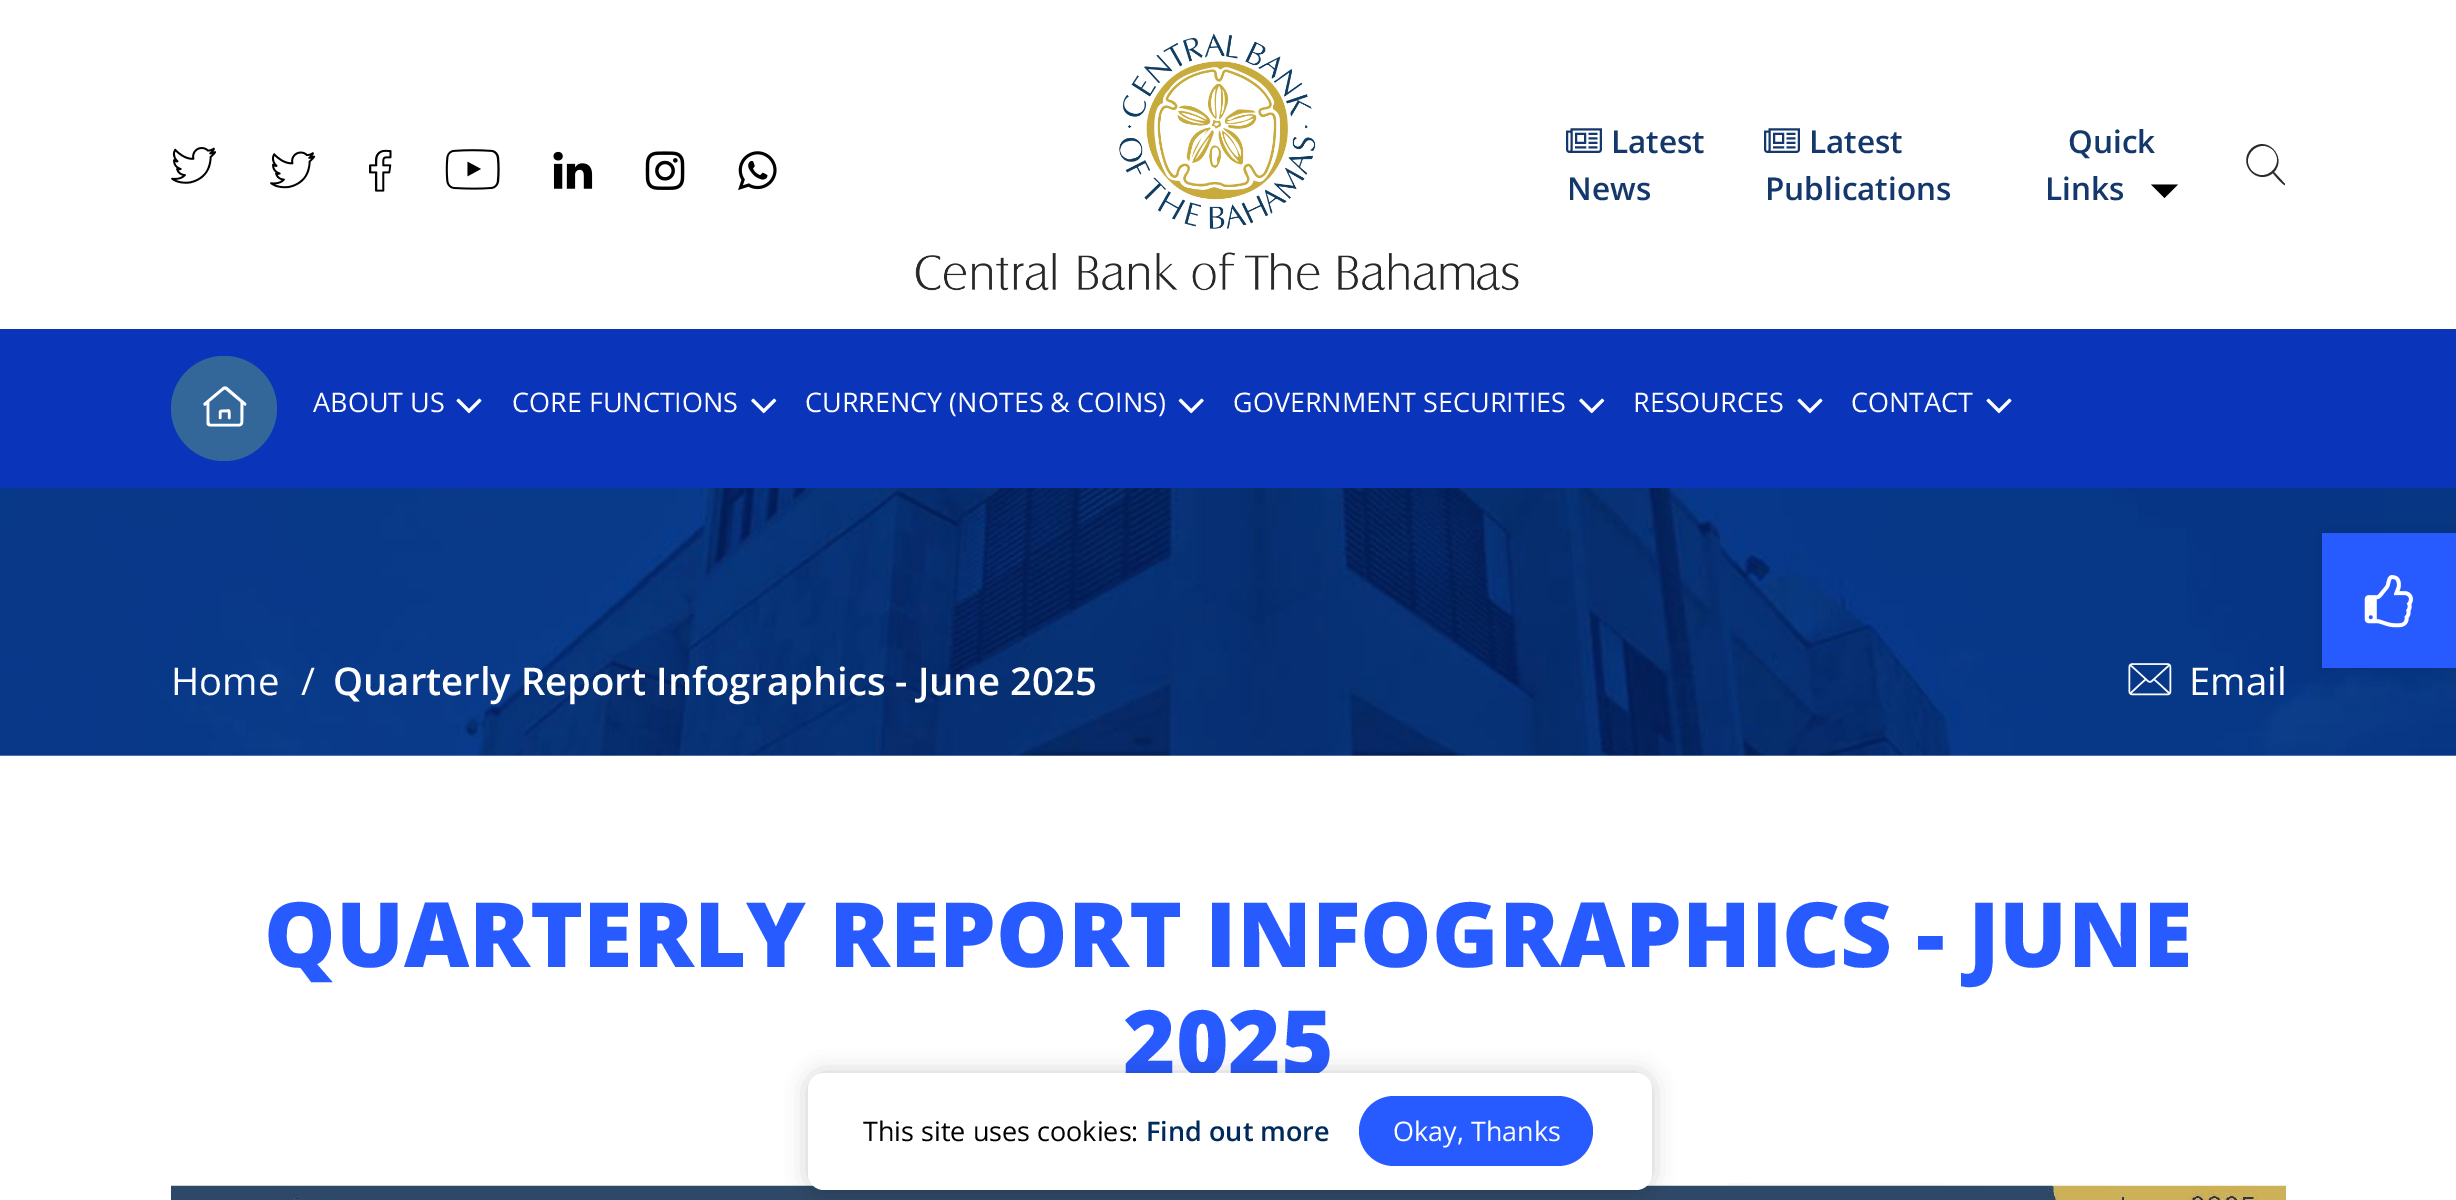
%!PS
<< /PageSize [2456 1200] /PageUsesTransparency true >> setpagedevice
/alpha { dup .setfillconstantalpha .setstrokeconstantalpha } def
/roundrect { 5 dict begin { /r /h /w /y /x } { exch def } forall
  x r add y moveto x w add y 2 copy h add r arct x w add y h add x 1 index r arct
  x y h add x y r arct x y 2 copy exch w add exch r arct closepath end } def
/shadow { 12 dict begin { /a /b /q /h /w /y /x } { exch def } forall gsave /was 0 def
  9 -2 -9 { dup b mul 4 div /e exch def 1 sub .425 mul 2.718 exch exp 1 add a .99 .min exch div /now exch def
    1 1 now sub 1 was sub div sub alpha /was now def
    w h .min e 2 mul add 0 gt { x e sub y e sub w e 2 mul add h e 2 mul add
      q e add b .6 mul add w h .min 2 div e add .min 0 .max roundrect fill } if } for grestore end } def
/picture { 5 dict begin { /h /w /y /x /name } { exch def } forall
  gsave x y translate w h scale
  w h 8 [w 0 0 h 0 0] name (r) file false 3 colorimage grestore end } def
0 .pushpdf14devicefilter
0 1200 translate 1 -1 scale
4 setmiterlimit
1 setgray
0 0 2456 1200 rectfill
0.902 0.918 0.973 setrgbcolor
0 755 2456 1 rectfill
(img1.rgb) 171 147 46 37 picture
(img2.rgb) 270 151 46 38 picture
(img3.rgb) 369 149 23 43 picture
(img4.rgb) 445 149 55 41 picture
(img5.rgb) 553 151 40 38 picture
(img6.rgb) 645 151 40 39 picture
(img7.rgb) 738 151 39 39 picture
(img8.rgb) 915 33 604 258 picture
(img9.rgb) 1566 128 36 25 picture
/OpenSans-SemiBold [31.5 0 0 -31.5 0 0] selectfont
0.078 0.22 0.42 setrgbcolor
1611 153 moveto (Latest) show
1567 200 moveto (News) show
(img9.rgb) 1764 128 36 25 picture
1809 153 moveto (Latest) show
1765 200 moveto (Publications) show
2068 153 moveto (Quick) show
2045 200 moveto (Links) show
0 setgray
newpath 2151 184.5 moveto 2178 184.5 lineto 2164.5 198 lineto closepath fill
0.161 setgray
newpath 2285 184 moveto 2285 185 lineto 2284 186 2274 175 2273 173 curveto 2257 186 2237 164 2251 149 curveto 2266 134 2288 157 2274 172 curveto closepath 2252 171 moveto 2266 184 2286 164 2273 150 curveto 2259 137 2239 157 2252 171 curveto closepath fill
0.039 0.204 0.729 setrgbcolor
0 329 2456 159 rectfill
0.2 0.4 0.6 setrgbcolor
171 356 106 105 52.5 roundrect fill
(img10.rgb) 203 386 44 41 picture
/OpenSans-Regular [27 0 0 -27 0 0] selectfont
1 setgray
313 412 moveto (ABOUT US) show
(img11.rgb) 456 398 26 16 picture
512 412 moveto (CORE FUNCTIONS) show
(img12.rgb) 751 398 26 16 picture
805 412 moveto (CURRENCY \(NOTES & COINS\)) show
(img13.rgb) 1178 398 26 16 picture
1233 412 moveto (GOVERNMENT SECURITIES) show
(img12.rgb) 1579 398 26 16 picture
1633 412 moveto (RESOURCES) show
(img11.rgb) 1797 398 26 16 picture
1851 412 moveto (CONTACT) show
(img11.rgb) 1986 398 26 16 picture
(img14.rgb) 0 488 2456 268 picture
/OpenSans-Regular [38.25 0 0 -38.25 0 0] selectfont
171 695 moveto (Home) show
301 695 moveto (/) show
/OpenSans-SemiBold [38.25 0 0 -38.25 0 0] selectfont
333 695 moveto (Quarterly Report Infographics - June 2025) show
(img15.rgb) 2128 663 44 33 picture
/OpenSans-Regular [38.25 0 0 -38.25 0 0] selectfont
2189 695 moveto (Email) show
0 setgray
2322 533 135 135 0 11 0.1 shadow
0.157 0.357 1 setrgbcolor
2322 533 134 135 rectfill
(img16.rgb) 2364 575 49 53 picture
(img17.rgb) 1727 1183 379 3 picture
/OpenSans-ExtraBold [90 0 0 -90 0 0] selectfont
264 967 moveto (QUARTERLY REPORT INFOGRAPHICS - JUNE) show
1123 1075 moveto (2025) show
(img18.rgb) 171 1185 2115 15 picture
0 setgray
808 1073 844 117 16 11 0.2 shadow
1 setgray
808 1073 844 117 16 roundrect fill
/OpenSans-Regular [27 0 0 -27 0 0] selectfont
0 setgray
863 1141 moveto (This site uses cookies:) show
/OpenSans-SemiBold [27 0 0 -27 0 0] selectfont
0 0.165 0.361 setrgbcolor
1146 1141 moveto (Find out more) show
0.157 0.357 1 setrgbcolor
1359 1096 234 70 35 roundrect fill
/OpenSans-Regular [27 0 0 -27 0 0] selectfont
1 setgray
1393 1141 moveto (Okay, Thanks) show
.poppdf14devicefilter showpage
